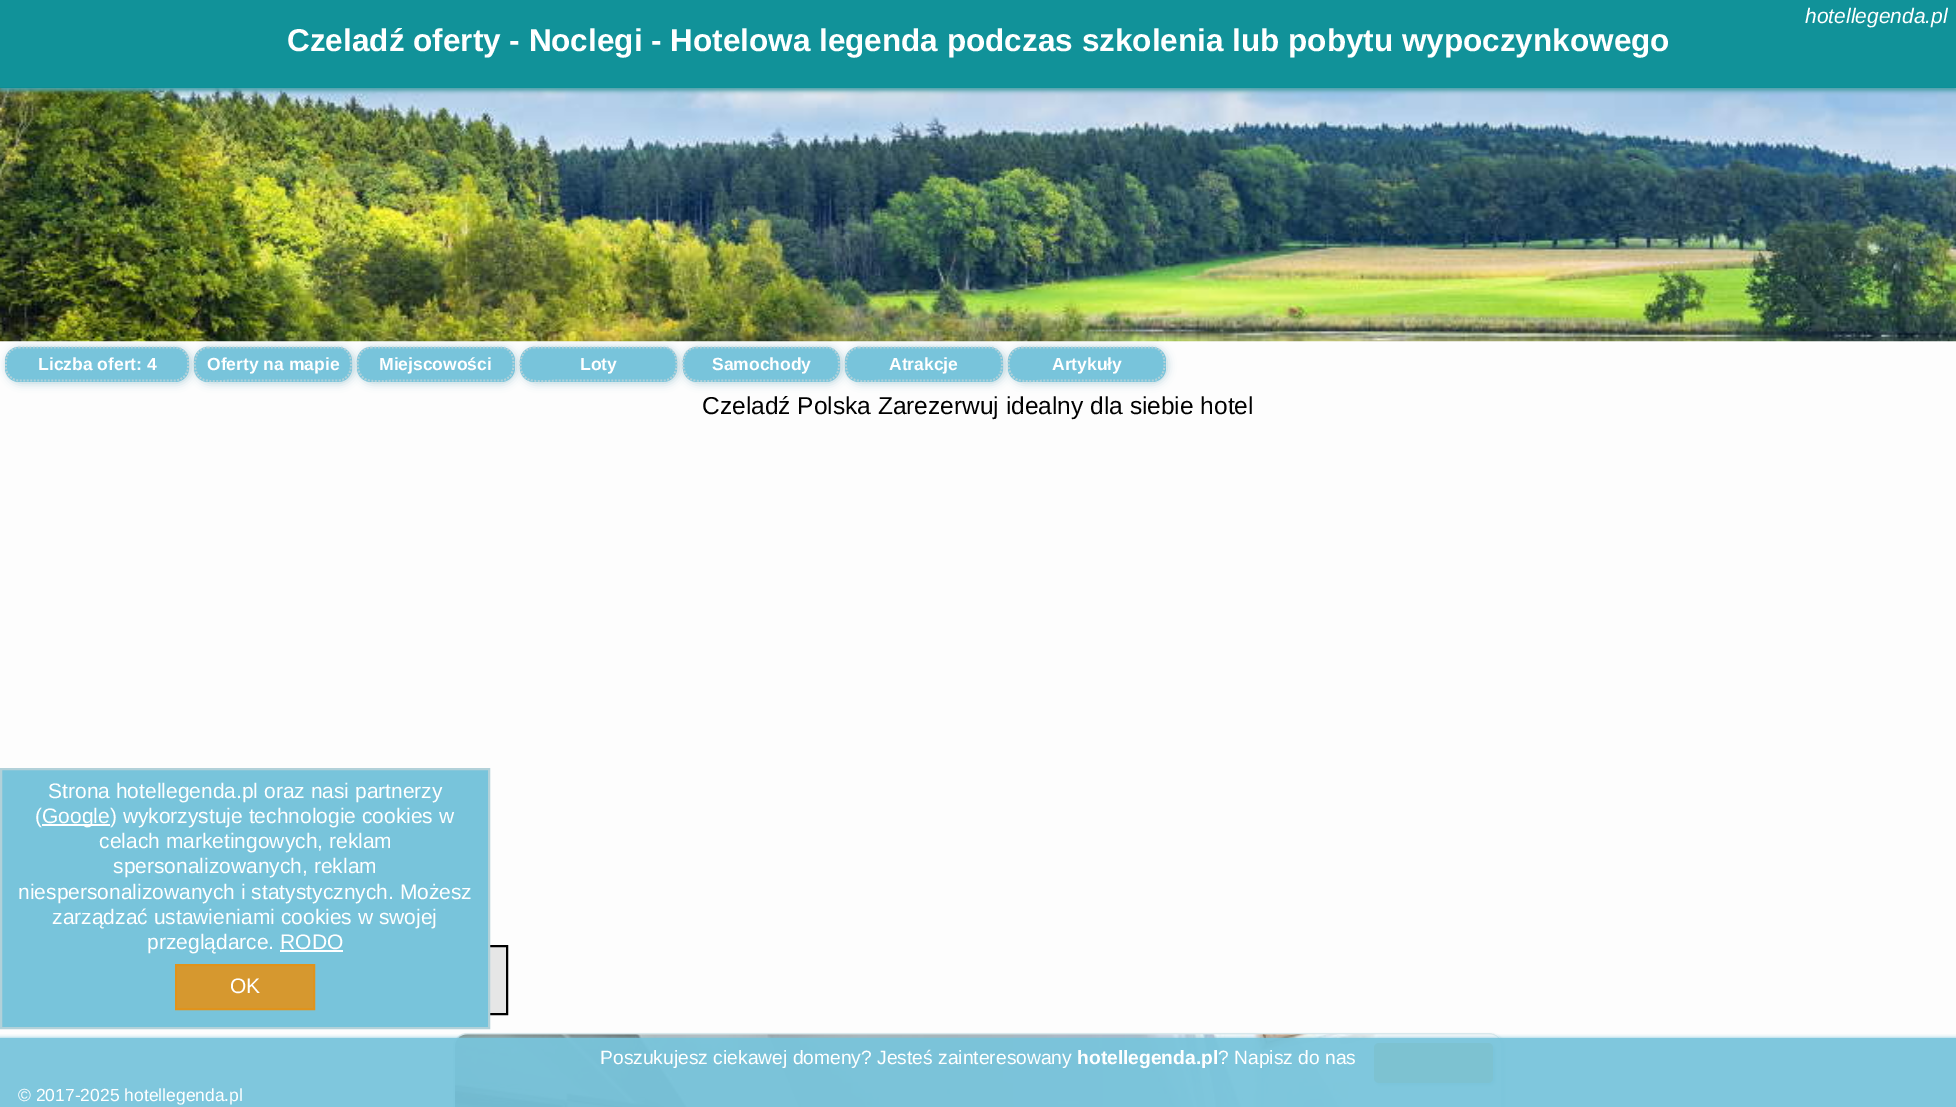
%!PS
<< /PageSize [1956 1107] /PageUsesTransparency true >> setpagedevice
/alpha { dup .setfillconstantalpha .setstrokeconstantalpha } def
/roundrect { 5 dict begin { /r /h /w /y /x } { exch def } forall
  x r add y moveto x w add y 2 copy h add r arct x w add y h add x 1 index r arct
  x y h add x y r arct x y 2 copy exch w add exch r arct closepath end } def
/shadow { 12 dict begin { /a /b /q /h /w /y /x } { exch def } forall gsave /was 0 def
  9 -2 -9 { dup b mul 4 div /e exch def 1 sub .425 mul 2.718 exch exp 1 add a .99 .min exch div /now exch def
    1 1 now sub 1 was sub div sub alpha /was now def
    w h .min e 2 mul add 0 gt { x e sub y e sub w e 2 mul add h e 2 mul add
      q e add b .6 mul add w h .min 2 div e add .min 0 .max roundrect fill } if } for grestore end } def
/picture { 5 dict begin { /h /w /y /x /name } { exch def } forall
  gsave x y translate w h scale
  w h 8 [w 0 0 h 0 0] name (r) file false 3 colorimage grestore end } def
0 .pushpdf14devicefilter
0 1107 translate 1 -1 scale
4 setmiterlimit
0.992 setgray
0 0 1956 1107 rectfill
(img1.rgb) 0 87 1956 255 picture
gsave
newpath 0 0 moveto 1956 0 lineto 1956 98 lineto 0 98 lineto closepath 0 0 moveto 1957 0 lineto 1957 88 lineto 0 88 lineto closepath eoclip newpath
0.298 0.631 0.663 setrgbcolor
0 4 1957 87 0 2 1 shadow
grestore
0.95 alpha
0.016 0.549 0.58 setrgbcolor
0 0 1956 88 rectfill
/LiberationSans-Italic [21 0 0 -21 0 0] selectfont
1 alpha
1 setgray
1805 23 moveto (hotellegenda.pl) show
/LiberationSans-Bold [31.5 0 0 -31.5 0 0] selectfont
287 51 moveto (Czeladź oferty - Noclegi - Hotelowa legenda podczas szkolenia lub pobytu wypoczynkowego) show
gsave
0 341 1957 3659 rectclip
0.698 0.82 0.851 setrgbcolor
7 348 184 35 14 4.5 1 shadow
grestore
0.471 0.769 0.859 setrgbcolor
5 347 184 35 14 roundrect fill
0.698 0.82 0.851 setrgbcolor
1.8 setlinewidth
[1.75 1.75] 0 setdash
newpath 19 347.5 moveto 175 347.5 lineto 182 347.5 188 353.5 188 360.5 curveto 188 367.5 lineto 188 374.5 182 380.5 175 380.5 curveto 19 380.5 lineto 12 380.5 6 374.5 6 367.5 curveto 6 360.5 lineto 6 353.5 12 347.5 19 347.5 curveto closepath stroke
/LiberationSans-Bold [17.5 0 0 -17.5 0 0] selectfont
1 setgray
38 370 moveto (Liczba ofert: 4) show
gsave
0 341 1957 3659 rectclip
0.698 0.82 0.851 setrgbcolor
196 348 158 35 14 4.5 1 shadow
grestore
0.471 0.769 0.859 setrgbcolor
194 347 158 35 14 roundrect fill
0.698 0.82 0.851 setrgbcolor
newpath 208 347.5 moveto 340.5 347.5 lineto 349.5 349.5 351 357 351 364.5 curveto 351 373 347.5 380.5 338 380.5 curveto 230 380.5 lineto 228.5 380.5 210 382.5 203 379.5 curveto 190.5 374.5 192 347.5 208 347.5 curveto closepath stroke
1 setgray
207 370 moveto (Oferty na mapie) show
gsave
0 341 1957 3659 rectclip
0.698 0.82 0.851 setrgbcolor
359 348 157 35 14 4.5 1 shadow
grestore
0.471 0.769 0.859 setrgbcolor
357 347 158 35 14 roundrect fill
0.698 0.82 0.851 setrgbcolor
newpath 371 347.5 moveto 503 347.5 lineto 512 349.5 513.5 357 513.5 364.5 curveto 513.5 373 510 380.5 500.5 380.5 curveto 392.5 380.5 lineto 391 380.5 373 382.5 366 379.5 curveto 353.5 374.5 354.5 347.5 371 347.5 curveto closepath stroke
1 setgray
379 370 moveto (Miejscowości) show
gsave
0 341 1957 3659 rectclip
0.698 0.82 0.851 setrgbcolor
522 348 157 35 14 4.5 1 shadow
grestore
0.471 0.769 0.859 setrgbcolor
520 347 157 35 14 roundrect fill
0.698 0.82 0.851 setrgbcolor
newpath 534 347.5 moveto 666 347.5 lineto 675 349.5 676.5 357 676.5 364.5 curveto 676.5 373 673 380.5 663 380.5 curveto 555.5 380.5 lineto 554 380.5 535.5 382.5 528.5 379.5 curveto 516 374.5 517.5 347.5 534 347.5 curveto closepath stroke
1 setgray
580 370 moveto (Loty) show
gsave
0 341 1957 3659 rectclip
0.698 0.82 0.851 setrgbcolor
684 348 158 35 14 4.5 1 shadow
grestore
0.471 0.769 0.859 setrgbcolor
683 347 157 35 14 roundrect fill
0.698 0.82 0.851 setrgbcolor
newpath 696.5 347.5 moveto 828.5 347.5 lineto 837.5 349.5 839 357 839 364.5 curveto 839 373 835.5 380.5 826 380.5 curveto 718 380.5 lineto 716.5 380.5 698.5 382.5 691.5 379.5 curveto 679 374.5 680 347.5 696.5 347.5 curveto closepath stroke
1 setgray
712 370 moveto (Samochody) show
gsave
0 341 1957 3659 rectclip
0.698 0.82 0.851 setrgbcolor
847 348 158 35 14 4.5 1 shadow
grestore
0.471 0.769 0.859 setrgbcolor
845 347 158 35 14 roundrect fill
0.698 0.82 0.851 setrgbcolor
newpath 859 347.5 moveto 991.5 347.5 lineto 1000.5 349.5 1002 357 1002 364.5 curveto 1002 373 998.5 380.5 989 380.5 curveto 881 380.5 lineto 879.5 380.5 861 382.5 854 379.5 curveto 841.5 374.5 843 347.5 859 347.5 curveto closepath stroke
1 setgray
889 370 moveto (Atrakcje) show
gsave
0 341 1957 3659 rectclip
0.698 0.82 0.851 setrgbcolor
1010 348 157 35 14 4.5 1 shadow
grestore
0.471 0.769 0.859 setrgbcolor
1008 347 158 35 14 roundrect fill
0.698 0.82 0.851 setrgbcolor
newpath 1022 347.5 moveto 1154 347.5 lineto 1163 349.5 1164.5 357 1164.5 364.5 curveto 1164.5 373 1161 380.5 1151.5 380.5 curveto 1043.5 380.5 lineto 1042 380.5 1024 382.5 1017 379.5 curveto 1004.5 374.5 1005.5 347.5 1022 347.5 curveto closepath stroke
1 setgray
1052 370 moveto (Artykuły) show
/LiberationSans-Regular [24.5 0 0 -24.5 0 0] selectfont
0 setgray
702 414 moveto (Czeladź Polska Zarezerwuj idealny dla siebie hotel) show
0.902 setgray
490 947 16 66 rectfill
0 setgray
2 setlinewidth
[] 0 setdash
19 946 488 68 rectstroke
0.698 0.82 0.851 setrgbcolor
455 1034 1050 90 14 1 0.5 shadow
1 setgray
453 1033 1050 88 14 roundrect fill
0.5 alpha
0.698 0.82 0.851 setrgbcolor
454 1034 1048 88 13 roundrect stroke
1 alpha
(img2.rgb) 455 1034 1047 73 picture
1376 1045 119 40 5 1 1 shadow
0.878 0.576 0.11 setrgbcolor
1374 1043 119 40 5 roundrect fill
0.471 0.769 0.859 setrgbcolor
newpath 1 769 moveto 489 769 lineto 489 1028 lineto 1 1028 lineto closepath gsave fill grestore
0.698 0.82 0.851 setrgbcolor
stroke
/LiberationSans-Regular [21 0 0 -21 0 0] selectfont
1 setgray
48 798 moveto (Strona hotellegenda.pl oraz nasi partnerzy) show
35 823 moveto (\() show
42 824 68 2 rectfill
42 823 moveto (Google\) wykorzystuje technologie cookies w) show
99 848 moveto (celach marketingowych, reklam) show
113 873 moveto (spersonalizowanych, reklam) show
18 899 moveto (niespersonalizowanych i statystycznych. Możesz) show
52 924 moveto (zarządzać ustawieniami cookies w swojej) show
147 949 moveto (przeglądarce. RODO) show
280 950 63 2 rectfill
0.839 0.596 0.184 setrgbcolor
newpath 176 965 moveto 314 965 lineto 314 1009 lineto 176 1009 lineto closepath gsave fill grestore
0.878 0.576 0.11 setrgbcolor
stroke
1 setgray
230 993 moveto (OK) show
gsave
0 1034 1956 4 rectclip
0.471 0.769 0.859 setrgbcolor
0 1038 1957 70 0 2 1 shadow
grestore
0.95 alpha
0.471 0.769 0.859 setrgbcolor
0 1038 1956 69 rectfill
/LiberationSans-Regular [19.25 0 0 -19.25 0 0] selectfont
1 alpha
1 setgray
600 1064 moveto (Poszukujesz ciekawej domeny? Jesteś zainteresowany) show
/LiberationSans-Bold [19.25 0 0 -19.25 0 0] selectfont
1077 1064 moveto (hotellegenda.pl) show
/LiberationSans-Regular [19.25 0 0 -19.25 0 0] selectfont
1218 1064 moveto (? Napisz do nas) show
/LiberationSans-Regular [17.5 0 0 -17.5 0 0] selectfont
18 1101 moveto (© 2017-2025 hotellegenda.pl) show
.poppdf14devicefilter showpage
